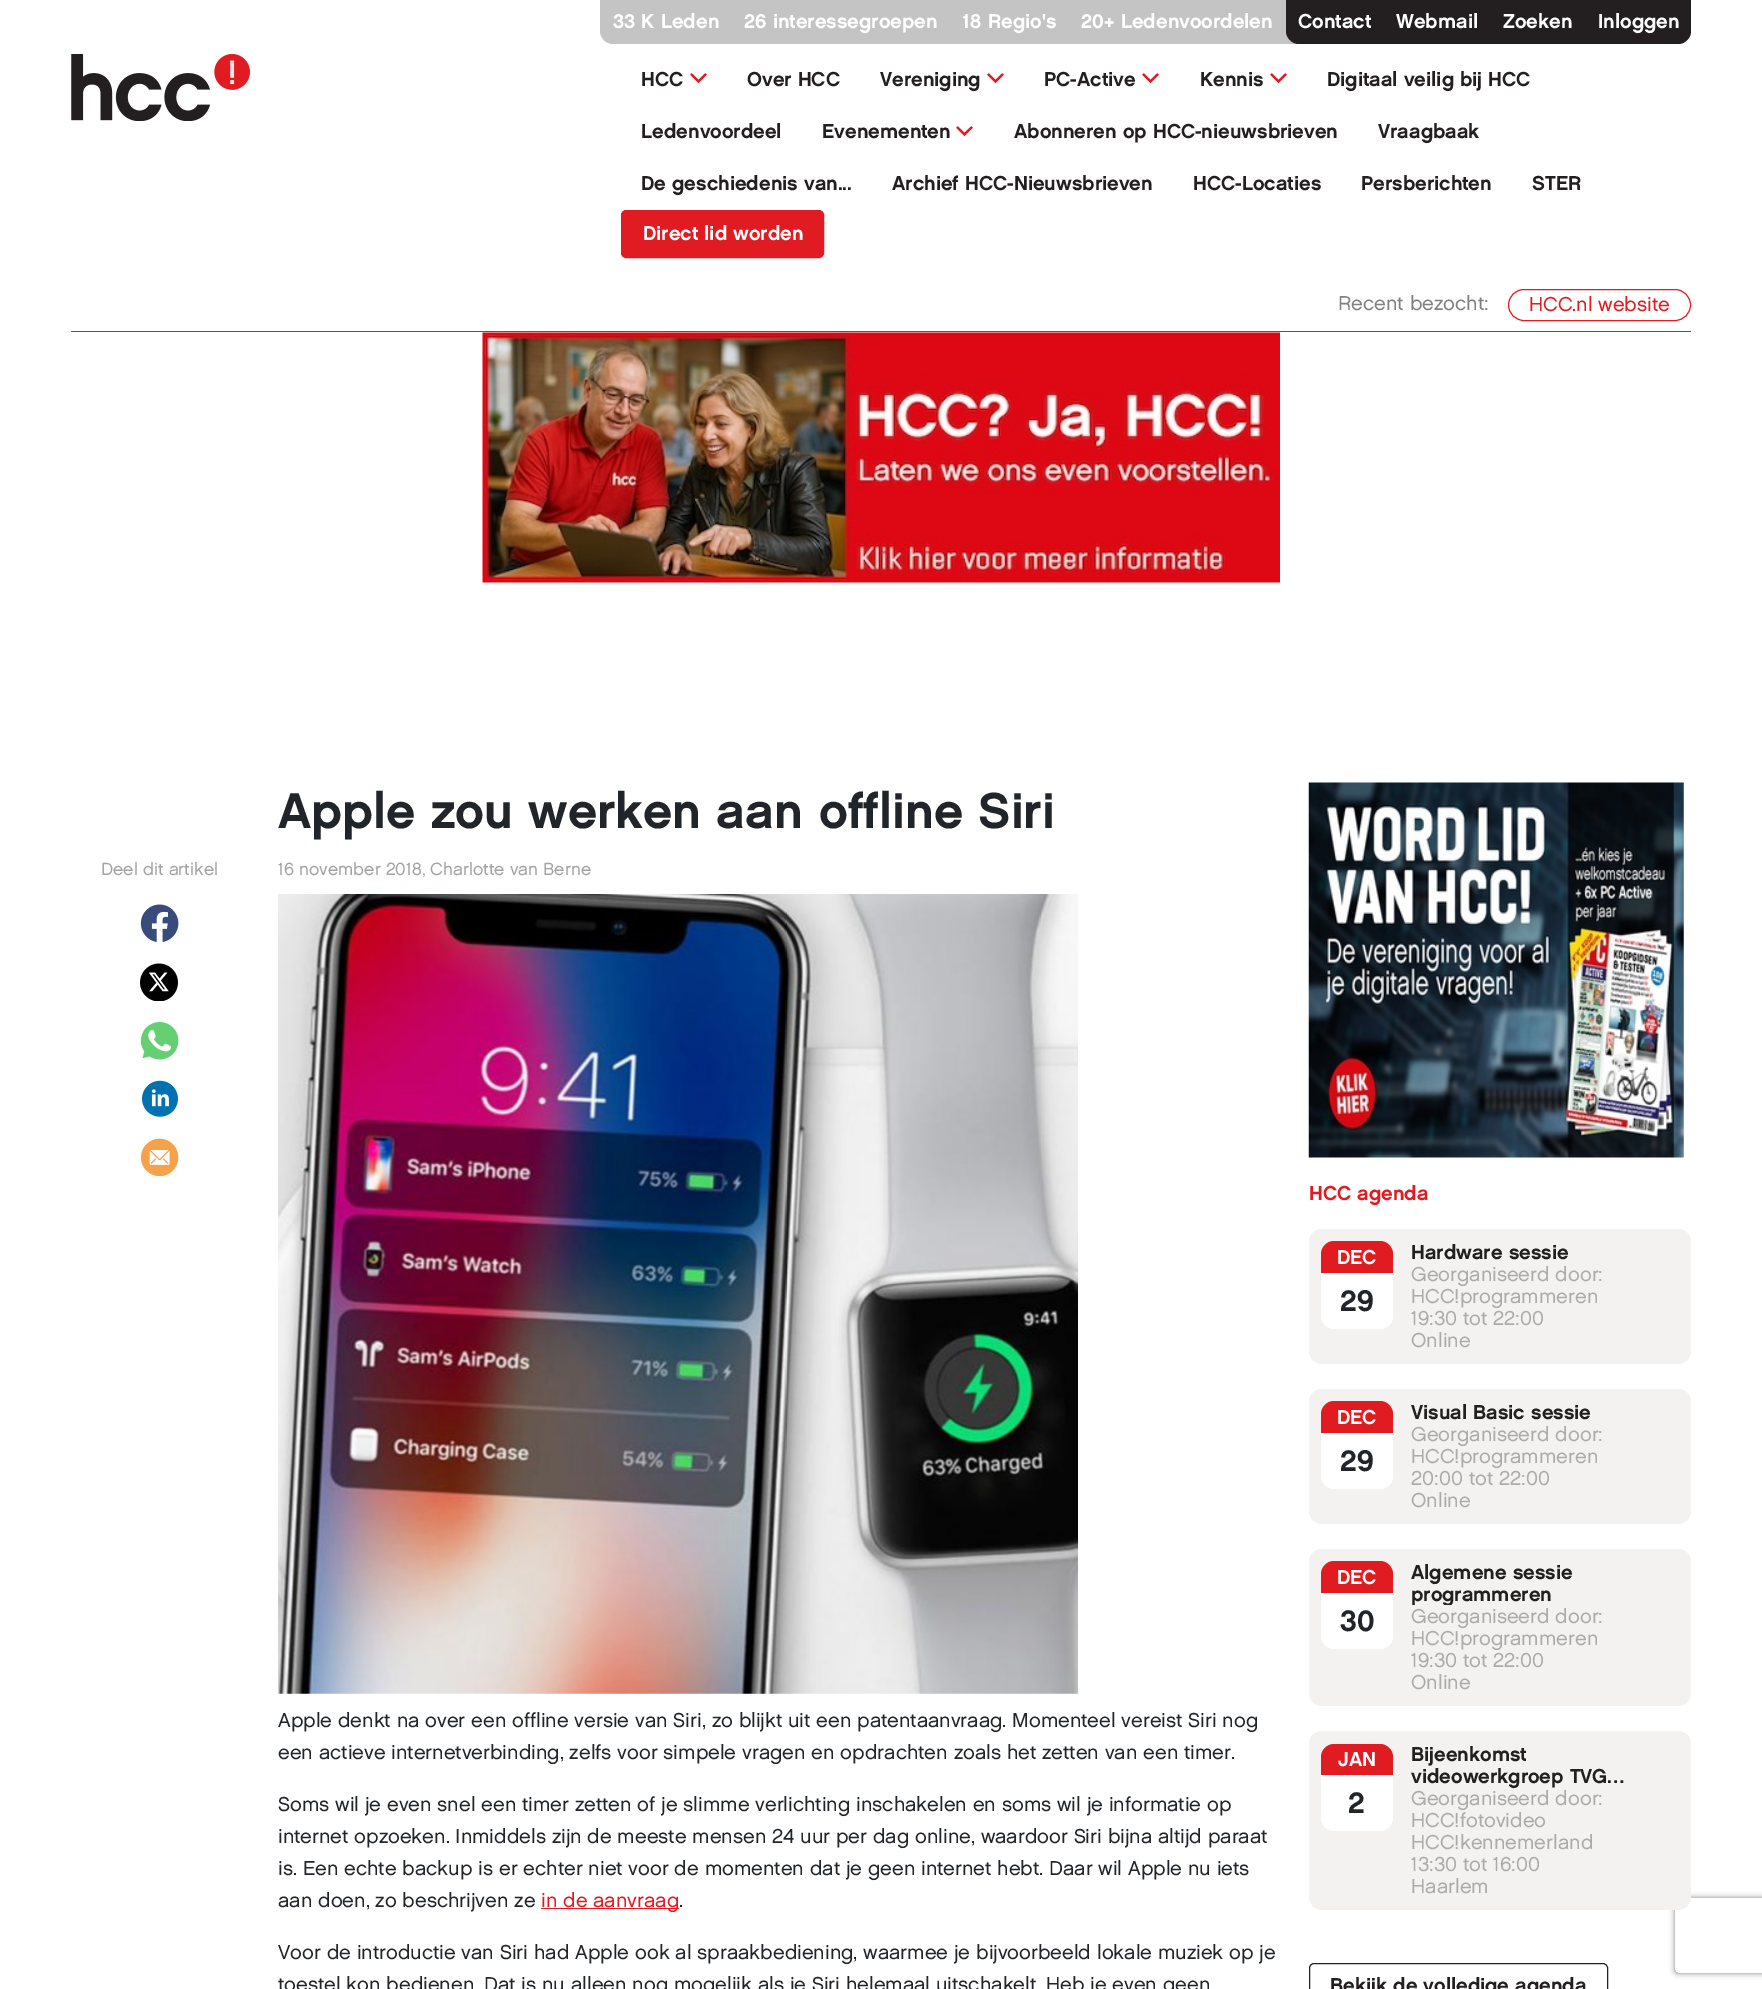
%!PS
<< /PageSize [1762 1989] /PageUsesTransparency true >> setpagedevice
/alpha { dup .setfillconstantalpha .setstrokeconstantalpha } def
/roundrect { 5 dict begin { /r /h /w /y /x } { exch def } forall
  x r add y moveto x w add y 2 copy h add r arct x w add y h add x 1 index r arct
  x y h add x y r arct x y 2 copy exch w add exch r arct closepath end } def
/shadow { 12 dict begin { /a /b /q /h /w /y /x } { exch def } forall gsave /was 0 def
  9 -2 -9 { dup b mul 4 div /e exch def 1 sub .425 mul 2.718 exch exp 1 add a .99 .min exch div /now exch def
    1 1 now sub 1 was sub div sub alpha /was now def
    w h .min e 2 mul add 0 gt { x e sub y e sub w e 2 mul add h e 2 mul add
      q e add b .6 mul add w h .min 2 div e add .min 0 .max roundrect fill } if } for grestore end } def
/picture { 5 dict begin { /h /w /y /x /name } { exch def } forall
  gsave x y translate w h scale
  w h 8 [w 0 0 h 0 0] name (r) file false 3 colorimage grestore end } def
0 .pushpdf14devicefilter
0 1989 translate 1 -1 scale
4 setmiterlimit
1 setgray
0 0 1762 1989 rectfill
0.769 setgray
newpath 600 0 moveto 1691 0 lineto 1691 31 lineto 1691 38 1685 44 1678 44 curveto 613 44 lineto 606 44 600 38 600 31 curveto closepath fill
/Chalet-Regular [20 0 0 -20 0 0] selectfont
1 setgray
613 28 moveto (33 K Leden) show
744 28 moveto (26 interessegroepen) show
962 28 moveto (18 Regio's) show
1081 28 moveto (20+ Ledenvoordelen) show
0.137 0.122 0.125 setrgbcolor
newpath 1286 0 moveto 1691 0 lineto 1691 31 lineto 1691 38 1685 44 1678 44 curveto 1299 44 lineto 1292 44 1286 38 1286 31 curveto closepath fill
1 setgray
1298 28 moveto (Contact) show
1396 28 moveto (Webmail) show
1503 28 moveto (Zoeken) show
1598 28 moveto (Inloggen) show
(img1.rgb) 71 54 179 67 picture
0.137 0.122 0.125 setrgbcolor
641 86 moveto (HCC) show
(img2.rgb) 690 73 17 11 picture
747 86 moveto (Over HCC) show
880 86 moveto (Vereniging) show
(img2.rgb) 987 73 17 11 picture
1044 86 moveto (PC-Active) show
(img2.rgb) 1142 73 17 11 picture
1200 86 moveto (Kennis) show
(img2.rgb) 1270 73 17 11 picture
1327 86 moveto (Digitaal veilig bij HCC) show
641 138 moveto (Ledenvoordeel) show
822 138 moveto (Evenementen) show
(img2.rgb) 956 126 17 11 picture
1014 138 moveto (Abonneren op HCC-nieuwsbrieven) show
1378 138 moveto (Vraagbaak) show
641 190 moveto (De geschiedenis van...) show
892 190 moveto (Archief HCC-Nieuwsbrieven) show
1193 190 moveto (HCC-Locaties) show
1361 190 moveto (Persberichten) show
1532 190 moveto (STER) show
0.882 0.106 0.133 setrgbcolor
621.5 210.5 202 47 4.5 roundrect gsave fill grestore
stroke
1 setgray
643 240 moveto (Direct lid worden) show
/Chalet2-Regular [20 0 0 -20 0 0] selectfont
0.502 setgray
1338 310 moveto (Recent bezocht:) show
0.882 0.106 0.133 setrgbcolor
1508.5 289.5 182 31 15.5 roundrect stroke
1529 311 moveto (HCC.nl website) show
71 331 1620 1 rectfill
(img3.rgb) 482 332 798 251 picture
/Chalet-Regular [50 0 0 -50 0 0] selectfont
0.129 0.145 0.161 setrgbcolor
278 828 moveto (Apple zou werken aan offline Siri) show
/Chalet2-Regular [17.5 0 0 -17.5 0 0] selectfont
0.639 setgray
101 875 moveto (Deel dit artikel) show
(img4.rgb) 140 904 39 38 picture
(img5.rgb) 140 963 38 38 picture
(img6.rgb) 140 1022 39 38 picture
(img7.rgb) 142 1080 36 37 picture
(img8.rgb) 140 1138 39 38 picture
278 875 moveto (16 november 2018, Charlotte van Berne) show
(img9.rgb) 278 894 800 800 picture
/Chalet2-Regular [20 0 0 -20 0 0] selectfont
0.129 0.145 0.161 setrgbcolor
278 1727 moveto (Apple denkt na over een offline versie van Siri, zo blijkt uit een patentaanvraag. Momenteel vereist Siri nog) show
278 1759 moveto (een actieve internetverbinding, zelfs voor simpele vragen en opdrachten zoals het zetten van een timer.) show
278 1811 moveto (Soms wil je even snel een timer zetten of je slimme verlichting inschakelen en soms wil je informatie op) show
278 1843 moveto (internet opzoeken. Inmiddels zijn de meeste mensen 24 uur per dag online, waardoor Siri bijna altijd paraat) show
278 1875 moveto (is. Een echte backup is er echter niet voor de momenten dat je geen internet hebt. Daar wil Apple nu iets) show
278 1907 moveto (aan doen, zo beschrijven ze) show
0.882 0.106 0.133 setrgbcolor
541 1908 138 1 rectfill
541 1907 moveto (in de aanvraag) show
0.129 0.145 0.161 setrgbcolor
679 1907 moveto (.) show
278 1959 moveto (Voor de introductie van Siri had Apple ook al spraakbediening, waarmee je bijvoorbeeld lokale muziek op je) show
278 1991 moveto (toestel kon bedienen. Dat is nu alleen nog mogelijk als je Siri helemaal uitschakelt. Heb je even geen) show
(img10.rgb) 1308 782 376 376 picture
/Chalet-Regular [20 0 0 -20 0 0] selectfont
0.882 0.106 0.133 setrgbcolor
1309 1200 moveto (HCC agenda) show
0.957 0.949 0.941 setrgbcolor
1309 1229 382 135 13 roundrect fill
1 setgray
1321 1241 72 88 13 roundrect fill
0.882 0.106 0.133 setrgbcolor
newpath 1334 1241 moveto 1380 1241 lineto 1387 1241 1393 1247 1393 1254 curveto 1393 1273 lineto 1321 1273 lineto 1321 1254 lineto 1321 1247 1327 1241 1334 1241 curveto closepath fill
1 setgray
1337 1264 moveto (DEC) show
/Chalet-Regular [30 0 0 -30 0 0] selectfont
0.129 0.145 0.161 setrgbcolor
1340 1311 moveto (29) show
/Chalet-Regular [20 0 0 -20 0 0] selectfont
0.137 0.122 0.125 setrgbcolor
1411 1259 moveto (Hardware sessie) show
/Chalet2-Regular [20 0 0 -20 0 0] selectfont
0.671 setgray
1411 1281 moveto (Georganiseerd door:) show
1411 1303 moveto (HCC!programmeren) show
1411 1325 moveto (19:30 tot 22:00) show
1411 1347 moveto (Online) show
0.957 0.949 0.941 setrgbcolor
1309 1389 382 135 13 roundrect fill
1 setgray
1321 1401 72 88 13 roundrect fill
0.882 0.106 0.133 setrgbcolor
newpath 1334 1401 moveto 1380 1401 lineto 1387 1401 1393 1407 1393 1414 curveto 1393 1433 lineto 1321 1433 lineto 1321 1414 lineto 1321 1407 1327 1401 1334 1401 curveto closepath fill
/Chalet-Regular [20 0 0 -20 0 0] selectfont
1 setgray
1337 1424 moveto (DEC) show
/Chalet-Regular [30 0 0 -30 0 0] selectfont
0.129 0.145 0.161 setrgbcolor
1340 1471 moveto (29) show
/Chalet-Regular [20 0 0 -20 0 0] selectfont
0.137 0.122 0.125 setrgbcolor
1411 1419 moveto (Visual Basic sessie) show
/Chalet2-Regular [20 0 0 -20 0 0] selectfont
0.671 setgray
1411 1441 moveto (Georganiseerd door:) show
1411 1463 moveto (HCC!programmeren) show
1411 1485 moveto (20:00 tot 22:00) show
1411 1507 moveto (Online) show
0.957 0.949 0.941 setrgbcolor
1309 1549 382 157 13 roundrect fill
1 setgray
1321 1561 72 88 13 roundrect fill
0.882 0.106 0.133 setrgbcolor
newpath 1334 1561 moveto 1380 1561 lineto 1387 1561 1393 1567 1393 1574 curveto 1393 1593 lineto 1321 1593 lineto 1321 1574 lineto 1321 1567 1327 1561 1334 1561 curveto closepath fill
/Chalet-Regular [20 0 0 -20 0 0] selectfont
1 setgray
1337 1584 moveto (DEC) show
/Chalet-Regular [30 0 0 -30 0 0] selectfont
0.129 0.145 0.161 setrgbcolor
1340 1631 moveto (30) show
/Chalet-Regular [20 0 0 -20 0 0] selectfont
0.137 0.122 0.125 setrgbcolor
1411 1579 moveto (Algemene sessie) show
gsave
1411 1561 268 44 rectclip
1411 1601 moveto (programmeren) show
grestore
/Chalet2-Regular [20 0 0 -20 0 0] selectfont
0.671 setgray
1411 1623 moveto (Georganiseerd door:) show
1411 1645 moveto (HCC!programmeren) show
1411 1667 moveto (19:30 tot 22:00) show
1411 1689 moveto (Online) show
gsave
newpath 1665 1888 moveto 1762 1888 lineto 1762 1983 lineto 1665 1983 lineto closepath 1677.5 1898 moveto 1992.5 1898 lineto 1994 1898 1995 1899 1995 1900.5 curveto 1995 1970.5 lineto 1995 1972 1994 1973 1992.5 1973 curveto 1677.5 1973 lineto 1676 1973 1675 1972 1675 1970.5 curveto 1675 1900.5 lineto 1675 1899 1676 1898 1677.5 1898 curveto closepath eoclip newpath
0.502 setgray
1675 1898 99 75 2.5 3 1 shadow
grestore
0.957 0.949 0.941 setrgbcolor
1309 1731 382 179 13 roundrect fill
1 setgray
1321 1744 72 87 13 roundrect fill
0.882 0.106 0.133 setrgbcolor
newpath 1334 1744 moveto 1380 1744 lineto 1387 1744 1393 1750 1393 1757 curveto 1393 1775 lineto 1321 1775 lineto 1321 1757 lineto 1321 1750 1327 1744 1334 1744 curveto closepath fill
/Chalet-Regular [20 0 0 -20 0 0] selectfont
1 setgray
1338 1766 moveto (JAN) show
/Chalet-Regular [30 0 0 -30 0 0] selectfont
0.129 0.145 0.161 setrgbcolor
1348 1813 moveto (2) show
/Chalet-Regular [20 0 0 -20 0 0] selectfont
0.137 0.122 0.125 setrgbcolor
1411 1761 moveto (Bijeenkomst) show
1411 1783 moveto (videowerkgroep TVG…) show
/Chalet2-Regular [20 0 0 -20 0 0] selectfont
0.671 setgray
1411 1805 moveto (Georganiseerd door:) show
1411 1827 moveto (HCC!fotovideo) show
1411 1849 moveto (HCC!kennemerland) show
1411 1871 moveto (13:30 tot 16:00) show
1411 1893 moveto (Haarlem) show
0.137 0.122 0.125 setrgbcolor
1309.5 1963.5 298 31 4.5 roundrect stroke
/Chalet-Regular [20 0 0 -20 0 0] selectfont
1330 1992 moveto (Bekijk de volledige agenda) show
.poppdf14devicefilter showpage
